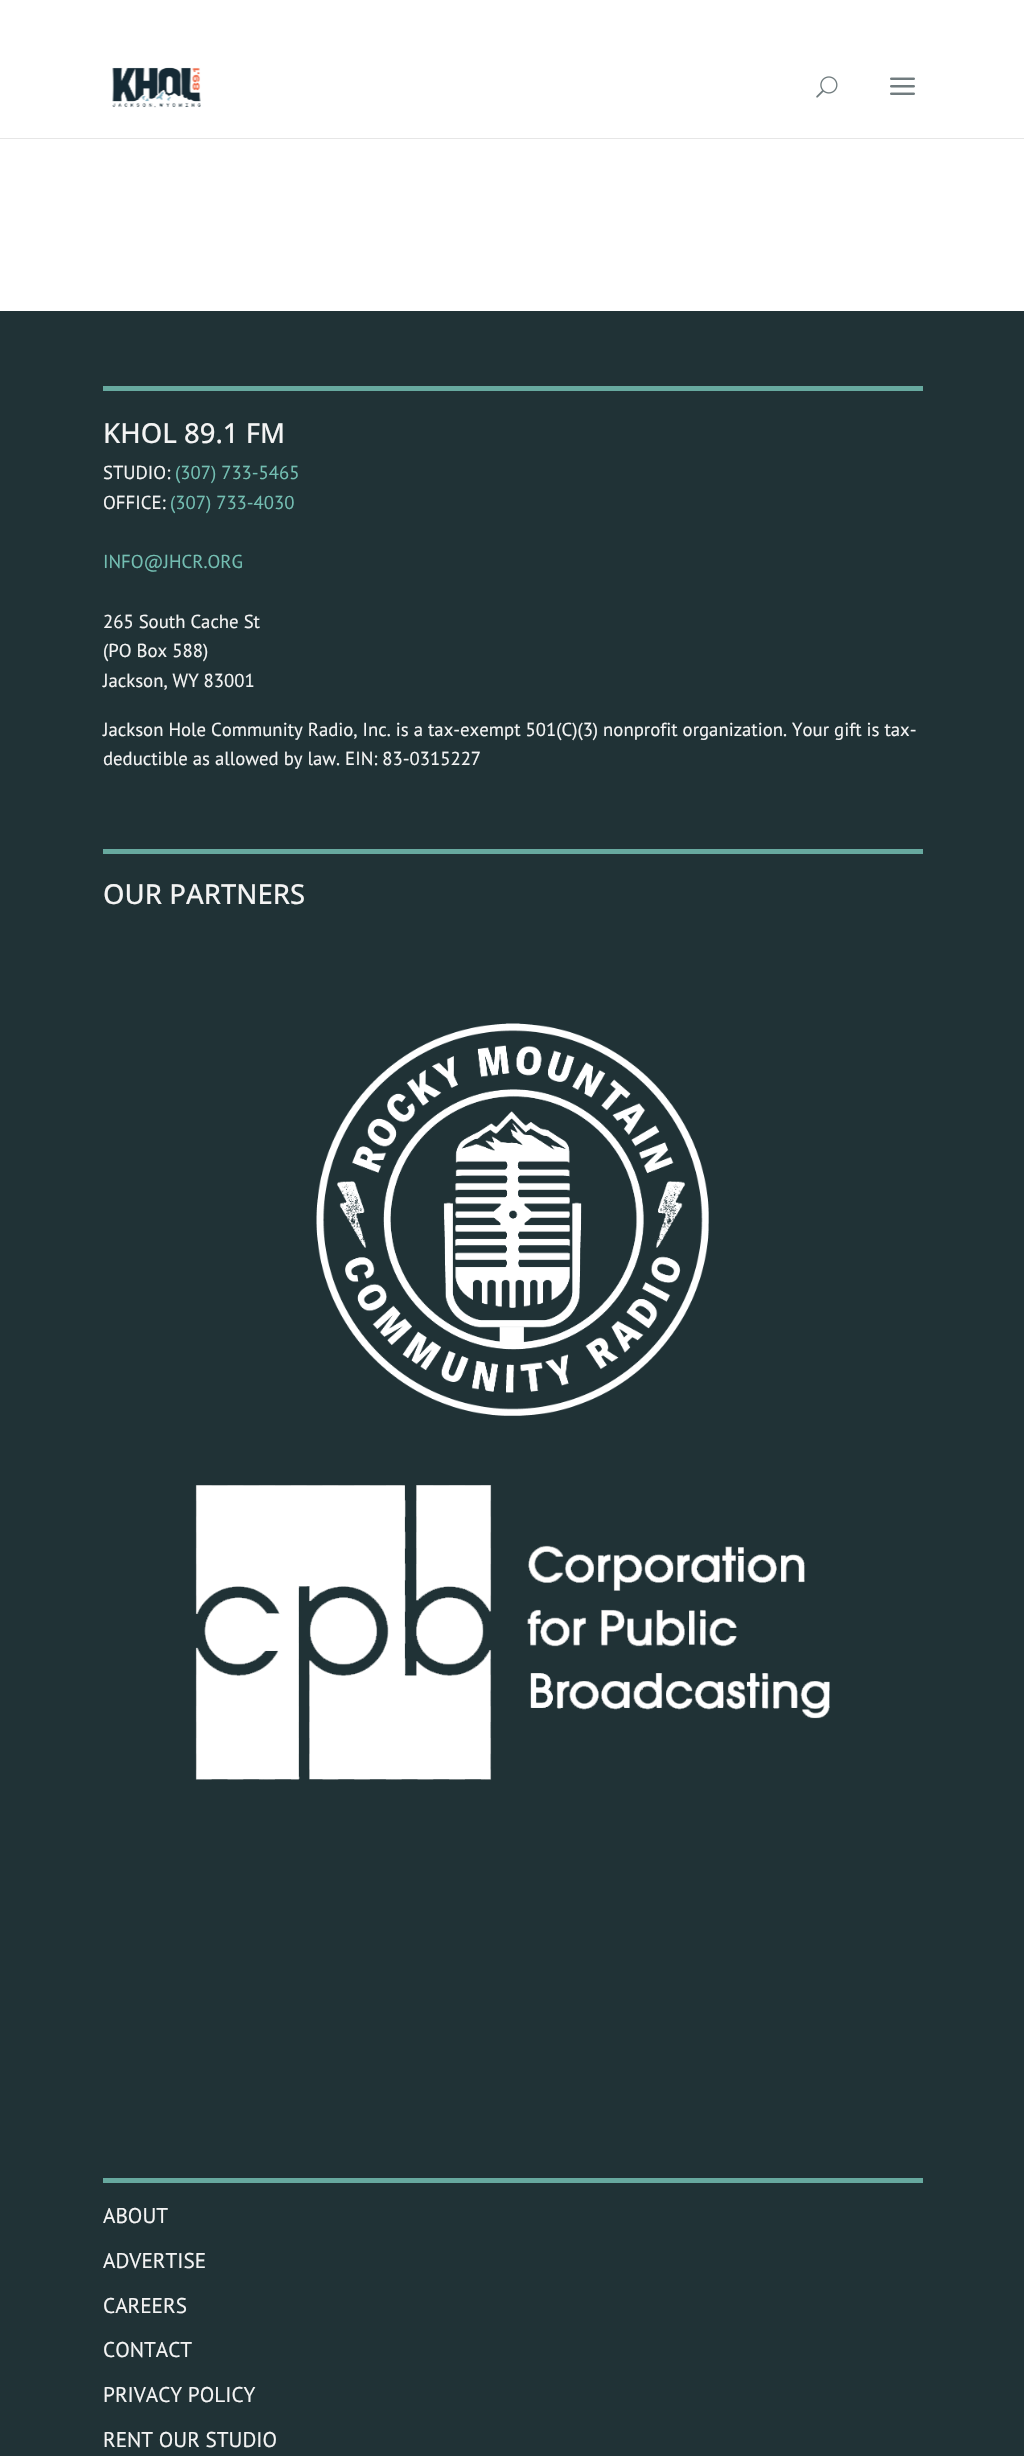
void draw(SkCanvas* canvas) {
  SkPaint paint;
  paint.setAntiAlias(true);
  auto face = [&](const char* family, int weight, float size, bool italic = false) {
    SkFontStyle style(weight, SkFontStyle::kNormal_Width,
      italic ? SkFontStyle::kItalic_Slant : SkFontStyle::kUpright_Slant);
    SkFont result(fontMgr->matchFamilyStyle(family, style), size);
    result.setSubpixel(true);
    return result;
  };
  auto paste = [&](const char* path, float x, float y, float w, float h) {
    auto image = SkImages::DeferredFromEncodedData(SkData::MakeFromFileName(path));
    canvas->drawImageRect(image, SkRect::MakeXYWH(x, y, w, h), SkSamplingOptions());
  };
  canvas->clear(0xffffffff);
  paint.setColor(0xffe6e6e6);
  canvas->drawRect(SkRect::MakeXYWH(0, 138, 1024, 1), paint);
  paste("img/1.png", 112, 67, 89, 41);
  paste("img/2.png", 816, 76, 22, 22);
  paste("img/3.png", 890, 77, 25, 18);
  {
    const struct { float x, y, w, h; SkColor color; } items[] = {
      {0, 311, 1024, 2145, 0xff203236},
      {103, 386, 820, 5, 0xff67a99f},
      {103, 849, 820, 5, 0xff67a99f},
    };
    for (auto [x, y, w, h, color] : items) {
      paint.setColor(color);
      canvas->drawRect(SkRect::MakeXYWH(x, y, w, h), paint);
    }
  }
  paste("img/4.png", 316, 1023, 393, 393);
  paste("img/5.png", 195, 1485, 635, 295);
  canvas->drawRect(SkRect::MakeXYWH(103, 2178, 820, 5), paint);
  auto f0 = face("Open Sans", 500, 27.5f);
  paint.setColor(0xfff4f4f4);
  canvas->drawString("KHOL 89.1 FM", 103, 443, f0, paint);
  auto f1 = face("PT Sans", 400, 18.75f);
  canvas->drawString("STUDIO:", 103, 479, f1, paint);
  paint.setColor(0xff73beb2);
  canvas->drawString("(307) 733-5465", 175, 479, f1, paint);
  paint.setColor(0xfff4f4f4);
  canvas->drawString("OFFICE:", 103, 509, f1, paint);
  paint.setColor(0xff73beb2);
  canvas->drawString("(307) 733-4030", 170, 509, f1, paint);
  canvas->drawString("INFO@JHCR.ORG", 103, 568, f1, paint);
  paint.setColor(0xfff4f4f4);
  {
    const struct { const char* s; float x, y; } items[] = {
      {"265 South Cache St", 103, 628},
      {"(PO Box 588)", 103, 657},
      {"Jackson, WY 83001", 103, 687},
      {"Jackson Hole Community Radio, Inc. is a tax-exempt 501(C)(3) nonprofit organization. Your gift is tax-", 103, 736},
      {"deductible as allowed by law. EIN: 83-0315227", 103, 765},
    };
    for (auto [s, x, y] : items) {
      canvas->drawString(s, x, y, f1, paint);
    }
  }
  canvas->drawString("OUR PARTNERS", 103, 904, f0, paint);
  auto f2 = face("PT Sans", 400, 21.25f);
  {
    const struct { const char* s; float x, y; } items[] = {
      {"ABOUT", 103, 2223},
      {"ADVERTISE", 103, 2268},
      {"CAREERS", 103, 2313},
      {"CONTACT", 103, 2357},
      {"PRIVACY POLICY", 103, 2402},
      {"RENT OUR STUDIO", 103, 2447},
    };
    for (auto [s, x, y] : items) {
      canvas->drawString(s, x, y, f2, paint);
    }
  }
}
